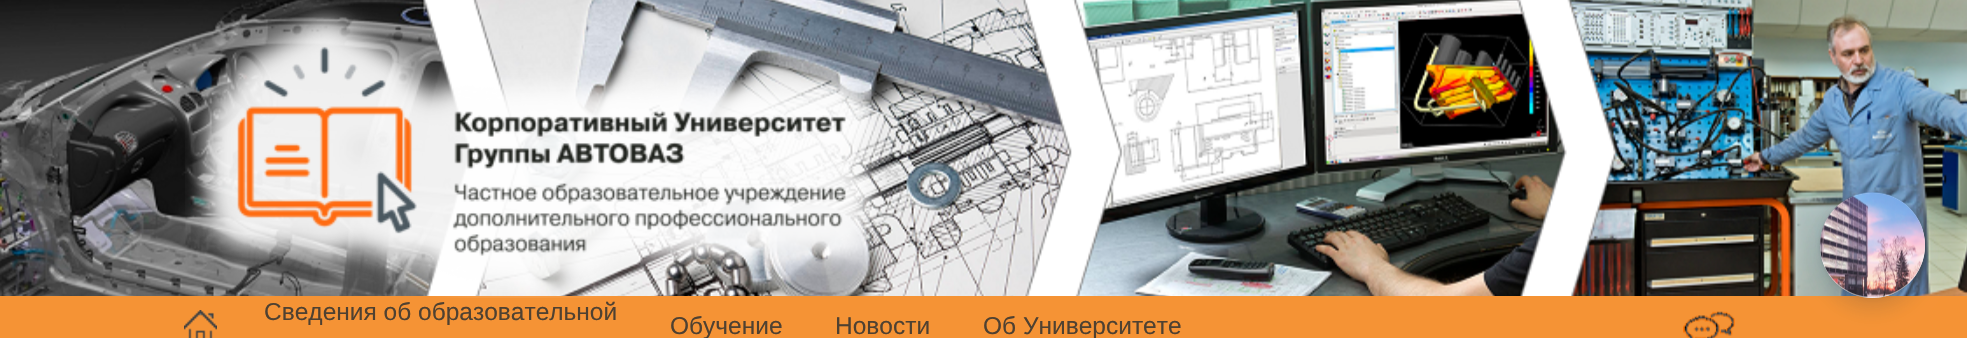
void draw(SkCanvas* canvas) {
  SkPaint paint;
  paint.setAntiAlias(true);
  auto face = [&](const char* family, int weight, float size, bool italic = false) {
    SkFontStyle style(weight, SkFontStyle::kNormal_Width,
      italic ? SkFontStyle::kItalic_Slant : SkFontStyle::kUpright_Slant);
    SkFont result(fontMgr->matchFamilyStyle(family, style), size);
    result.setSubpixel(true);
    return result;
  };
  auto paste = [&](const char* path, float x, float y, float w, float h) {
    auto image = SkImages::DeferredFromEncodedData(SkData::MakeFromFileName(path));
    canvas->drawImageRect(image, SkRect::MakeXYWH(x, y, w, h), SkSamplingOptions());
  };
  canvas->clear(0xffffffff);
  paste("img/1.png", 0, 0, 1967, 296);
  paint.setColor(0xfff59335);
  canvas->drawRect(SkRect::MakeXYWH(0, 296, 1967, 42), paint);
  paste("img/2.png", 185, 0, 707, 298);
  paste("img/3.png", 184, 310, 33, 28);
  paste("img/4.png", 1683, 311, 52, 27);
  paint.setColor(0x1a000000);
  paint.setMaskFilter(SkMaskFilter::MakeBlur(kNormal_SkBlurStyle, 2));
  canvas->drawRoundRect(SkRect::MakeXYWH(1820, 193, 105, 105), 52.5f, 52.5f, paint);
  paint.setMaskFilter(nullptr);
  paint.setColor(0x290c2b42);
  paint.setMaskFilter(SkMaskFilter::MakeBlur(kNormal_SkBlurStyle, 10.5f));
  canvas->drawRoundRect(SkRect::MakeXYWH(1820, 203, 105, 105), 52.5f, 52.5f, paint);
  paint.setMaskFilter(nullptr);
  paint.setColor(0x0f113c5c);
  paint.setMaskFilter(SkMaskFilter::MakeBlur(kNormal_SkBlurStyle, 1));
  canvas->drawRoundRect(SkRect::MakeXYWH(1820, 193, 105, 105), 52.5f, 52.5f, paint);
  paint.setMaskFilter(nullptr);
  paint.setColor(0xffffffff);
  canvas->drawCircle(1872.5f, 245.5f, 52.5f, paint);
  paste("img/5.png", 1820, 192, 105, 106);
  auto f0 = face("Liberation Sans", 400, 24.5f);
  paint.setColor(0xff4f4131);
  {
    const struct { const char* s; float x, y; } items[] = {
      {"Сведения об образовательной", 264, 320},
      {"Обучение", 670, 334},
      {"Новости", 835, 334},
      {"Об Университете", 983, 334},
    };
    for (auto [s, x, y] : items) {
      canvas->drawString(s, x, y, f0, paint);
    }
  }
}
